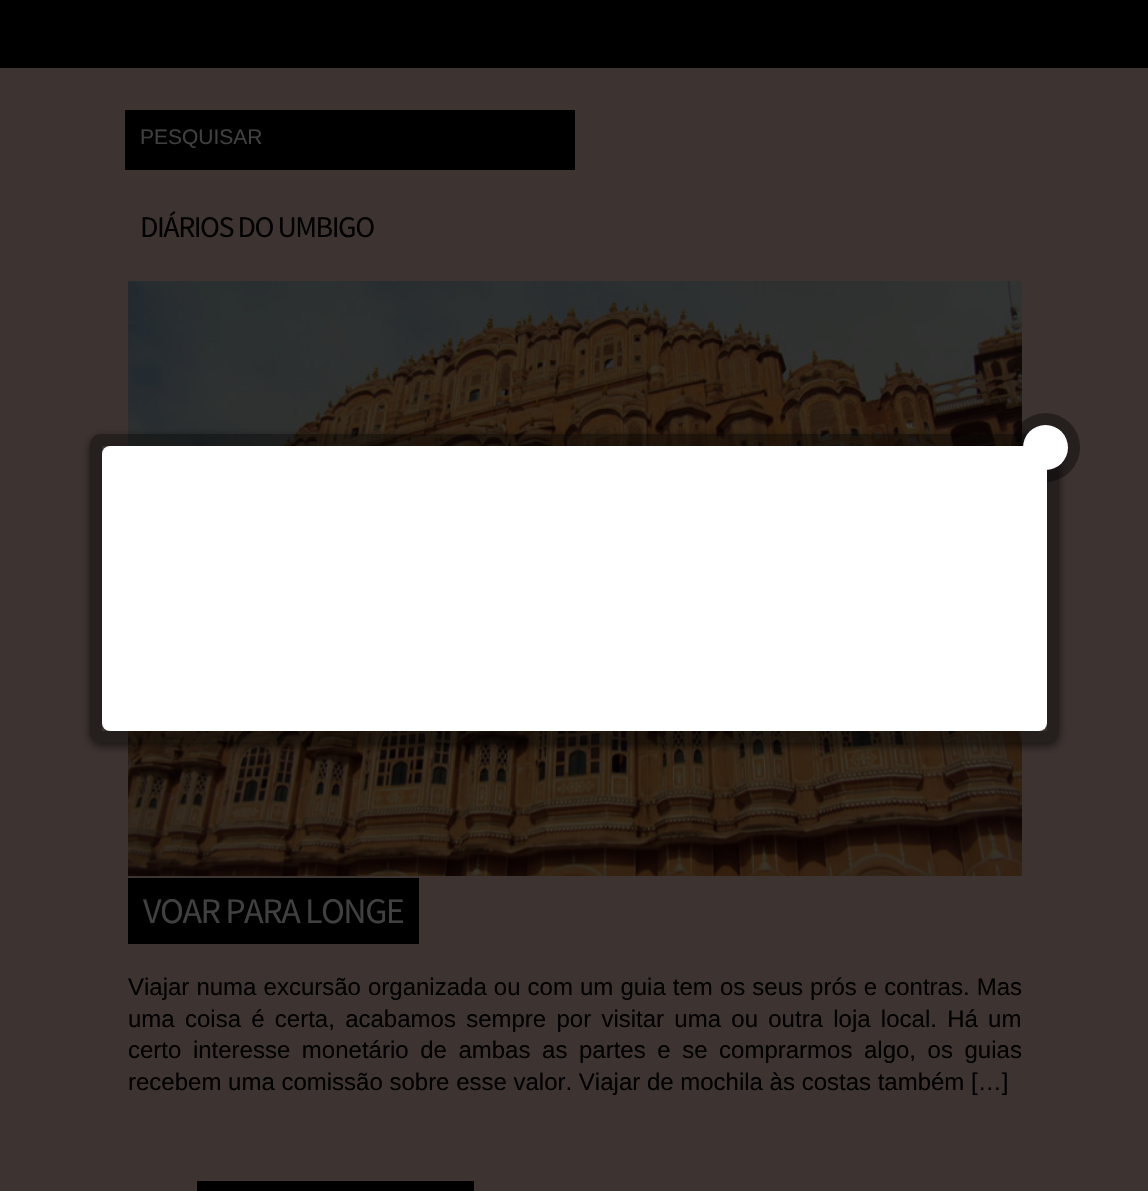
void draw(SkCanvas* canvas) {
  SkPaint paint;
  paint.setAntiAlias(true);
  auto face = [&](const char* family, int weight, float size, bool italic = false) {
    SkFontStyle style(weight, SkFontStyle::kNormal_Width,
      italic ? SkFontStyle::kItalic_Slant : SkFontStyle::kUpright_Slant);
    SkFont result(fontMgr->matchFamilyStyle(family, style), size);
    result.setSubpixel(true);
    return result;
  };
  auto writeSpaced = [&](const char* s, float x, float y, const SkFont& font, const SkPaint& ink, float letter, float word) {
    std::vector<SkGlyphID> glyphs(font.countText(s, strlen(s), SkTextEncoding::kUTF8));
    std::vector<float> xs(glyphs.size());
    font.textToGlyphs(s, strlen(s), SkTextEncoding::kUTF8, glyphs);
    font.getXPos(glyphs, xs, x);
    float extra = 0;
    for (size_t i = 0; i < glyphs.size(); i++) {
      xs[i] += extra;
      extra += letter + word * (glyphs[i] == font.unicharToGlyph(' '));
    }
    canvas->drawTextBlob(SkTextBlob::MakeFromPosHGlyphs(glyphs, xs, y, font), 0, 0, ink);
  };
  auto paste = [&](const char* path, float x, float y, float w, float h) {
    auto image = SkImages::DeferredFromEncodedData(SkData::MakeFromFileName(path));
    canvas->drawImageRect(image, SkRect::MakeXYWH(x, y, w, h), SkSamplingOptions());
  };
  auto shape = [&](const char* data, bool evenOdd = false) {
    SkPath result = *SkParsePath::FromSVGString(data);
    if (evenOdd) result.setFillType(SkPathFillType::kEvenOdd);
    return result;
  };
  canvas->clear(0xff3d3331);
  paint.setColor(0xff000000);
  canvas->drawRect(SkRect::MakeXYWH(0, 0, 1148, 68), paint);
  canvas->drawRect(SkRect::MakeXYWH(125, 110, 450, 60), paint);
  paste("img/1.png", 128, 281, 894, 595);
  canvas->save();
  canvas->clipPath(shape("M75 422H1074V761H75ZM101 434H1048C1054 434 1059 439 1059 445V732C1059 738 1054 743 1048 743H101C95 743 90 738 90 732V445C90 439 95 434 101 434Z", true), true);
  paint.setColor(0x99000000);
  paint.setMaskFilter(SkMaskFilter::MakeBlur(kNormal_SkBlurStyle, 4.5f));
  canvas->drawRoundRect(SkRect::MakeXYWH(90, 437, 969, 309), 11, 11, paint);
  paint.setMaskFilter(nullptr);
  canvas->restore();
  paint.setStroke(true);
  paint.setStrokeWidth(12);
  paint.setColor(0x66000000);
  canvas->drawRoundRect(SkRect::MakeXYWH(96, 440, 957, 297), 5, 5, paint);
  paint.setStroke(false);
  canvas->drawCircle(1045.5f, 447.5f, 34.5f, paint);
  paint.setColor(0xffffffff);
  canvas->drawRoundRect(SkRect::MakeXYWH(102, 446, 945, 285), 8, 8, paint);
  canvas->drawCircle(1045.5f, 447.5f, 22.5f, paint);
  paint.setColor(0xff000000);
  canvas->drawRect(SkRect::MakeXYWH(128, 878, 291, 66), paint);
  canvas->drawRect(SkRect::MakeXYWH(197, 1181, 277, 10), paint);
  auto f0 = face("Liberation Sans", 400, 21);
  paint.setColor(0xff404040);
  canvas->drawString("PESQUISAR", 140, 144, f0, paint);
  auto f1 = face("Source Sans Pro", 400, 30);
  paint.setColor(0xff000000);
  writeSpaced("DIÁRIOS DO UMBIGO", 140, 237, f1, paint, -1.5f, 0);
  auto f2 = face("Source Sans Pro", 400, 36);
  paint.setColor(0xff404040);
  writeSpaced("VOAR PARA LONGE", 143, 923, f2, paint, -1.5f, 0);
  auto f3 = face("Liberation Sans", 400, 24);
  paint.setColor(0xff000000);
  writeSpaced("Viajar numa excursão organizada ou com um guia tem os seus prós e contras. Mas", 128, 995, f3, paint, 0, 0.4f);
  writeSpaced("uma coisa é certa, acabamos sempre por visitar uma ou outra loja local. Há um", 128, 1027, f3, paint, 0, 3.6f);
  writeSpaced("certo interesse monetário de ambas as partes e se comprarmos algo, os guias", 128, 1058, f3, paint, 0, 4.9f);
  canvas->drawString("recebem uma comissão sobre esse valor. Viajar de mochila às costas também […]", 128, 1090, f3, paint);
}
